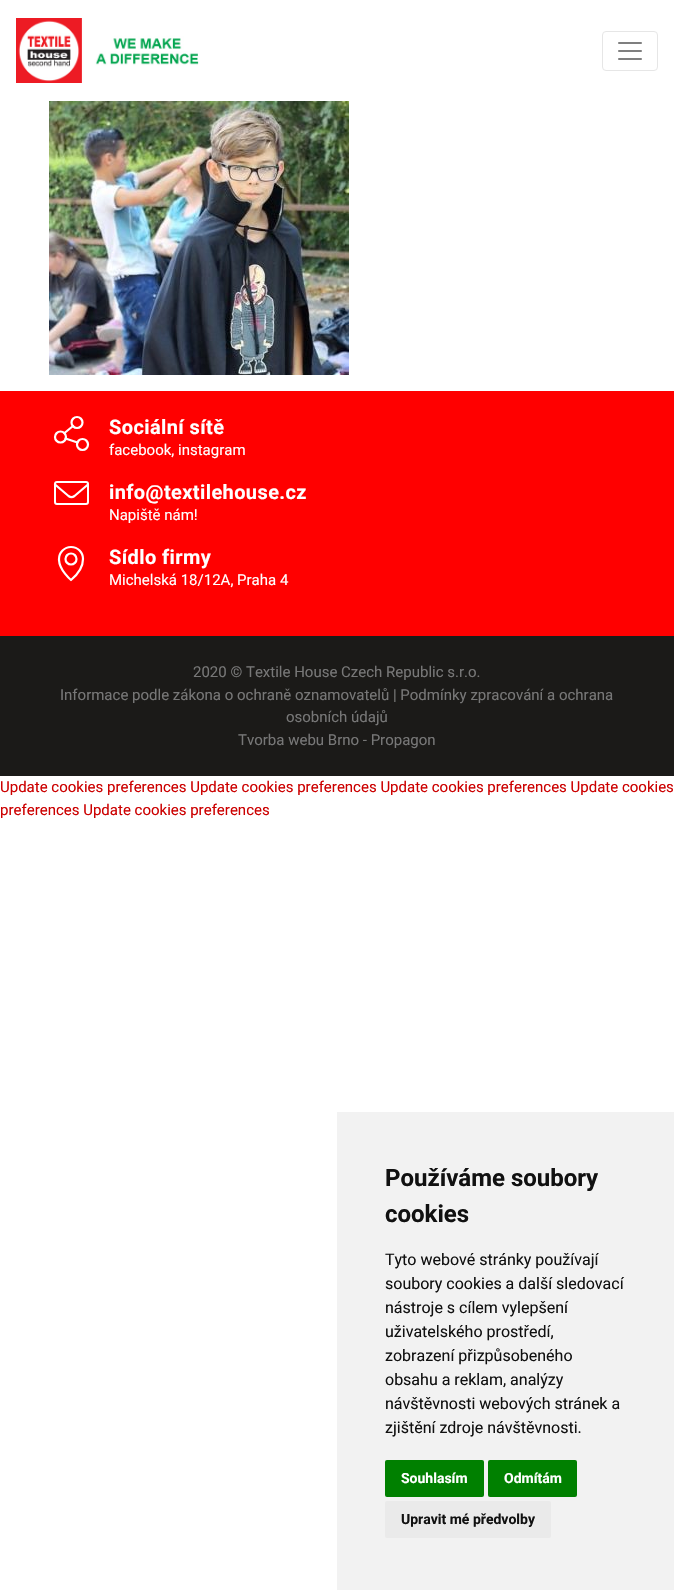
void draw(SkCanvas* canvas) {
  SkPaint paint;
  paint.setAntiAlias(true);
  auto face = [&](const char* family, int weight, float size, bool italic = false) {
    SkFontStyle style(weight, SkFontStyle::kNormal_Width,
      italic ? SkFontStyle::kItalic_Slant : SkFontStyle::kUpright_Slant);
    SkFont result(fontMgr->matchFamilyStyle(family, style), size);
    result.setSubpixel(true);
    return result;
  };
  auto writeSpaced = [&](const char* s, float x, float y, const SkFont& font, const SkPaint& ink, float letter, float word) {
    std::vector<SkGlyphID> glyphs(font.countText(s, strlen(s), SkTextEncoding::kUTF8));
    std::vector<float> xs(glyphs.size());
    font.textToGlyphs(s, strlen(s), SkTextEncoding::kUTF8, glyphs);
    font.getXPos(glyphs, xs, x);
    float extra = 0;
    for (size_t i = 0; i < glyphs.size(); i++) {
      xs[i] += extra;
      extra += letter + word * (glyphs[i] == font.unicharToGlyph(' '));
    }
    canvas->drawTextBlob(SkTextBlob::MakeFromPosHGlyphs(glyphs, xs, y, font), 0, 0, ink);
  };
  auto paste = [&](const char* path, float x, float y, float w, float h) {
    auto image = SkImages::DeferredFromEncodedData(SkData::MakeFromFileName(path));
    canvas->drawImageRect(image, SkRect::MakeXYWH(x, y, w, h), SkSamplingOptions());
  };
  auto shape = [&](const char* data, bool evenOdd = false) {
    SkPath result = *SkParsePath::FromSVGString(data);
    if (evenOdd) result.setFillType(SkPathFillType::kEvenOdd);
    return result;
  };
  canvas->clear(0xffffffff);
  paste("img/1.png", 16, 18, 183, 65);
  paint.setStroke(true);
  paint.setStrokeWidth(1);
  paint.setColor(0xffe6e6e6);
  canvas->drawRoundRect(SkRect::MakeXYWH(602.5f, 31.5f, 55, 39), 3.5f, 3.5f, paint);
  paste("img/2.png", 618, 42, 24, 18);
  paste("img/3.png", 49, 101, 300, 274);
  paint.setStroke(false);
  paint.setColor(0xffff0000);
  canvas->drawRect(SkRect::MakeXYWH(0, 391, 674, 245), paint);
  paint.setStroke(true);
  paint.setStrokeWidth(2.2f);
  paint.setColor(0xffffffff);
  canvas->drawCircle(60.5f, 437, 5.5f, paint);
  canvas->drawCircle(77, 422.5f, 5.5f, paint);
  canvas->drawCircle(82.5f, 444.5f, 5.5f, paint);
  paint.setStrokeCap(SkPaint::kRound_Cap);
  paint.setStrokeJoin(SkPaint::kRound_Join);
  canvas->drawPath(shape("M65.5 438.5L77.5 442.5M73 426L64.5 433"), paint);
  paint.setStrokeWidth(2);
  paint.setStrokeCap(SkPaint::kButt_Cap);
  paint.setStrokeJoin(SkPaint::kMiter_Join);
  canvas->drawRoundRect(SkRect::MakeXYWH(55, 482, 33, 22), 2, 2, paint);
  paint.setStrokeWidth(2.2f);
  paint.setStrokeCap(SkPaint::kRound_Cap);
  paint.setStrokeJoin(SkPaint::kRound_Join);
  canvas->drawPath(shape("M55 484.5L68.5 496C70.5 497.5 72.5 497.5 74.5 496L88 484.5"), paint);
  canvas->drawPath(shape("M83 559C83 567 77 575 71 580C71 580 59.5 570.5 59 560V559C59 552.5 64.5 547 71 547C78 547 83 552.5 83 559Z"), paint);
  paint.setStrokeCap(SkPaint::kButt_Cap);
  paint.setStrokeJoin(SkPaint::kMiter_Join);
  canvas->drawCircle(71, 559, 5.5f, paint);
  paint.setStroke(false);
  paint.setColor(0xff1b1a18);
  canvas->drawRect(SkRect::MakeXYWH(0, 636, 674, 140), paint);
  paint.setColor(0xfff2f2f2);
  canvas->drawRect(SkRect::MakeXYWH(337, 1112, 337, 478), paint);
  paint.setColor(0xff008000);
  canvas->drawRoundRect(SkRect::MakeXYWH(385, 1460, 99, 37), 2, 2, paint);
  canvas->drawRoundRect(SkRect::MakeXYWH(488, 1460, 89, 37), 2, 2, paint);
  paint.setColor(0xffeaeaea);
  canvas->drawRoundRect(SkRect::MakeXYWH(385, 1501, 166, 37), 2, 2, paint);
  auto f0 = face("Roboto", 700, 20);
  paint.setColor(0xffffffff);
  writeSpaced("Sociální sítě", 109, 434, f0, paint, 0.4f, 0);
  auto f1 = face("Roboto", 400, 15);
  canvas->drawString("facebook, instagram", 109, 455, f1, paint);
  writeSpaced("info@textilehouse.cz", 109, 499, f0, paint, 0.4f, 0);
  canvas->drawString("Napiště nám!", 109, 520, f1, paint);
  writeSpaced("Sídlo firmy", 109, 564, f0, paint, 0.4f, 0);
  canvas->drawString("Michelská 18/12A, Praha 4", 109, 585, f1, paint);
  paint.setColor(0xff777777);
  {
    const struct { const char* s; float x, y; } items[] = {
      {"2020 © Textile House Czech Republic s.r.o.", 193, 677},
      {"Informace podle zákona o ochraně oznamovatelů | Podmínky zpracování a ochrana", 60, 700},
      {"osobních údajů", 286, 722},
      {"Tvorba webu Brno - Propagon", 238, 745},
    };
    for (auto [s, x, y] : items) {
      canvas->drawString(s, x, y, f1, paint);
    }
  }
  paint.setColor(0xffcc0000);
  canvas->drawString("Update cookies preferences Update cookies preferences Update cookies preferences Update cookies", 0, 792, f1, paint);
  canvas->drawString("preferences Update cookies preferences", 0, 815, f1, paint);
  auto f2 = face("Roboto", 700, 24);
  paint.setColor(0xff111111);
  canvas->drawString("Používáme soubory", 385, 1186, f2, paint);
  canvas->drawString("cookies", 385, 1222, f2, paint);
  auto f3 = face("Roboto", 400, 16);
  {
    const struct { const char* s; float x, y; } items[] = {
      {"Tyto webové stránky používají", 385, 1265},
      {"soubory cookies a další sledovací", 385, 1289},
      {"nástroje s cílem vylepšení", 385, 1313},
      {"uživatelského prostředí,", 385, 1337},
      {"zobrazení přizpůsobeného", 385, 1361},
      {"obsahu a reklam, analýzy", 385, 1385},
      {"návštěvnosti webových stránek a", 385, 1409},
      {"zjištění zdroje návštěvnosti.", 385, 1433},
    };
    for (auto [s, x, y] : items) {
      canvas->drawString(s, x, y, f3, paint);
    }
  }
  auto f4 = face("Roboto", 700, 14);
  paint.setColor(0xffffffff);
  canvas->drawString("Souhlasím", 401, 1483, f4, paint);
  canvas->drawString("Odmítám", 504, 1483, f4, paint);
  paint.setColor(0xff111111);
  canvas->drawString("Upravit mé předvolby", 401, 1524, f4, paint);
}
